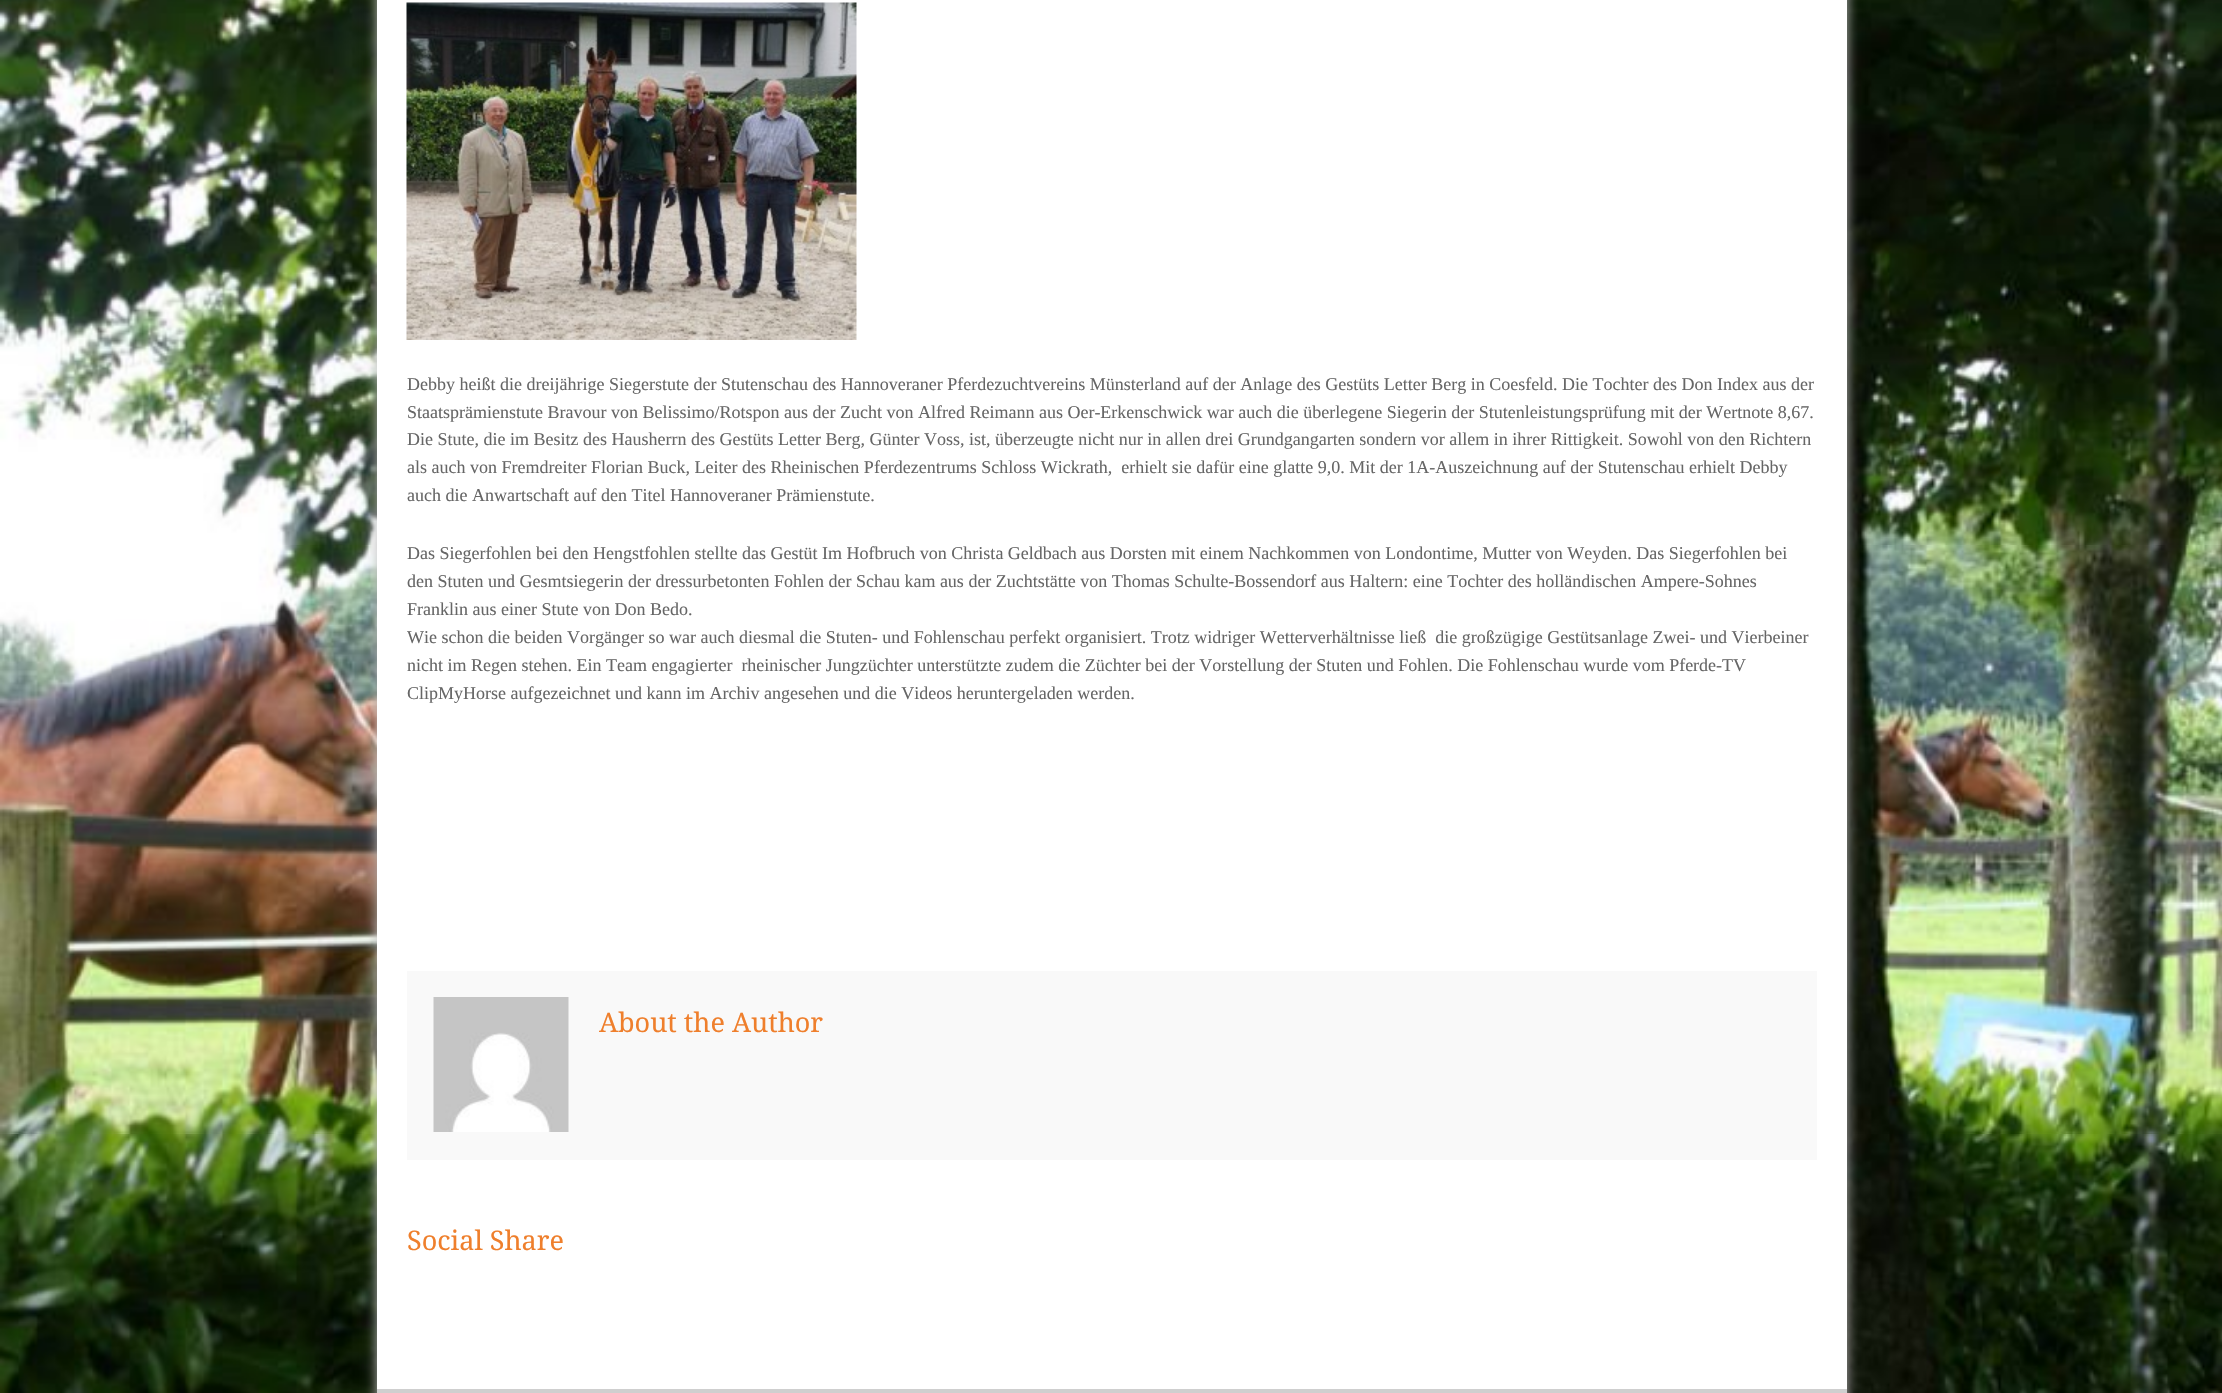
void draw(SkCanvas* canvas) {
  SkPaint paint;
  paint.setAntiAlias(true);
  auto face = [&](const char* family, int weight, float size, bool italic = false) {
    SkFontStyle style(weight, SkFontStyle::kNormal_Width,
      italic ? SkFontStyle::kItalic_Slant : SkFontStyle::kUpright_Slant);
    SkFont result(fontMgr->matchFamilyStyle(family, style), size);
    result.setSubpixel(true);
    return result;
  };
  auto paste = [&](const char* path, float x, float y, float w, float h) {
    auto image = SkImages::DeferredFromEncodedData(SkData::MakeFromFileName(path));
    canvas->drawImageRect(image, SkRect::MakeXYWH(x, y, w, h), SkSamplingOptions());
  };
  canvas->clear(0xffffffff);
  paste("img/1.png", 0, 0, 2222, 1393);
  paint.setColor(0xffbbbbbb);
  paint.setMaskFilter(SkMaskFilter::MakeBlur(kNormal_SkBlurStyle, 6));
  canvas->drawRect(SkRect::MakeXYWH(377, -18, 1470, 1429), paint);
  paint.setMaskFilter(nullptr);
  paint.setColor(0xffffffff);
  canvas->drawRect(SkRect::MakeXYWH(377, 0, 1470, 1389), paint);
  paste("img/2.png", 406, 2, 451, 338);
  paint.setColor(0xfff9f9f9);
  canvas->drawRect(SkRect::MakeXYWH(407, 971, 1410, 189), paint);
  paste("img/3.png", 433, 997, 136, 135);
  paint.setColor(0xffcfcfcf);
  canvas->drawRect(SkRect::MakeXYWH(377, 1389, 1470, 4), paint);
  auto f0 = face("Liberation Serif", 400, 18);
  paint.setColor(0xff666666);
  {
    const struct { const char* s; float x, y; } items[] = {
      {"Debby heißt die dreijährige Siegerstute der Stutenschau des Hannoveraner Pferdezuchtvereins Münsterland auf der Anlage des Gestüts Letter Berg in Coesfeld. Die Tochter des Don Index aus der", 407, 390},
      {"Staatsprämienstute Bravour von Belissimo/Rotspon aus der Zucht von Alfred Reimann aus Oer-Erkenschwick war auch die überlegene Siegerin der Stutenleistungsprüfung mit der Wertnote 8,67.", 407, 418},
      {"Die Stute, die im Besitz des Hausherrn des Gestüts Letter Berg, Günter Voss, ist, überzeugte nicht nur in allen drei Grundgangarten sondern vor allem in ihrer Rittigkeit. Sowohl von den Richtern", 407, 445},
      {"als auch von Fremdreiter Florian Buck, Leiter des Rheinischen Pferdezentrums Schloss Wickrath,  erhielt sie dafür eine glatte 9,0. Mit der 1A-Auszeichnung auf der Stutenschau erhielt Debby", 407, 473},
      {"auch die Anwartschaft auf den Titel Hannoveraner Prämienstute.", 407, 501},
      {"Das Siegerfohlen bei den Hengstfohlen stellte das Gestüt Im Hofbruch von Christa Geldbach aus Dorsten mit einem Nachkommen von Londontime, Mutter von Weyden. Das Siegerfohlen bei", 407, 559},
      {"den Stuten und Gesmtsiegerin der dressurbetonten Fohlen der Schau kam aus der Zuchtstätte von Thomas Schulte-Bossendorf aus Haltern: eine Tochter des holländischen Ampere-Sohnes", 407, 587},
      {"Franklin aus einer Stute von Don Bedo.", 407, 615},
      {"Wie schon die beiden Vorgänger so war auch diesmal die Stuten- und Fohlenschau perfekt organisiert. Trotz widriger Wetterverhältnisse ließ  die großzügige Gestütsanlage Zwei- und Vierbeiner", 407, 643},
      {"nicht im Regen stehen. Ein Team engagierter  rheinischer Jungzüchter unterstützte zudem die Züchter bei der Vorstellung der Stuten und Fohlen. Die Fohlenschau wurde vom Pferde-TV", 407, 671},
      {"ClipMyHorse aufgezeichnet und kann im Archiv angesehen und die Videos heruntergeladen werden.", 407, 699},
    };
    for (auto [s, x, y] : items) {
      canvas->drawString(s, x, y, f0, paint);
    }
  }
  auto f1 = face("Droid Serif", 400, 27);
  paint.setColor(0xffef7f2c);
  canvas->drawString("About the Author", 599, 1032, f1, paint);
  canvas->drawString("Social Share", 407, 1250, f1, paint);
}
